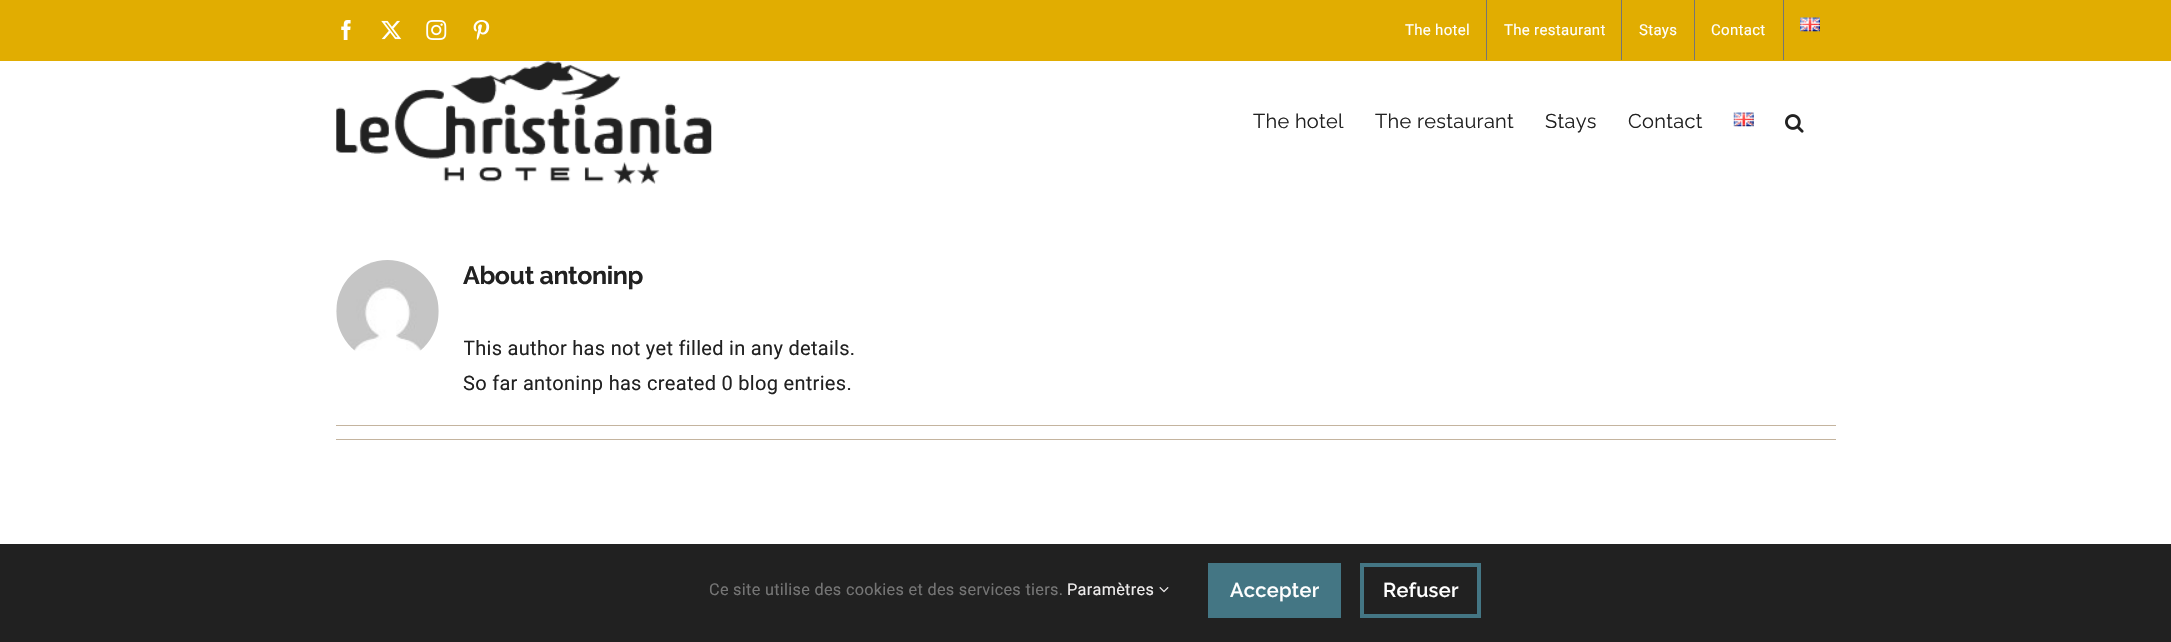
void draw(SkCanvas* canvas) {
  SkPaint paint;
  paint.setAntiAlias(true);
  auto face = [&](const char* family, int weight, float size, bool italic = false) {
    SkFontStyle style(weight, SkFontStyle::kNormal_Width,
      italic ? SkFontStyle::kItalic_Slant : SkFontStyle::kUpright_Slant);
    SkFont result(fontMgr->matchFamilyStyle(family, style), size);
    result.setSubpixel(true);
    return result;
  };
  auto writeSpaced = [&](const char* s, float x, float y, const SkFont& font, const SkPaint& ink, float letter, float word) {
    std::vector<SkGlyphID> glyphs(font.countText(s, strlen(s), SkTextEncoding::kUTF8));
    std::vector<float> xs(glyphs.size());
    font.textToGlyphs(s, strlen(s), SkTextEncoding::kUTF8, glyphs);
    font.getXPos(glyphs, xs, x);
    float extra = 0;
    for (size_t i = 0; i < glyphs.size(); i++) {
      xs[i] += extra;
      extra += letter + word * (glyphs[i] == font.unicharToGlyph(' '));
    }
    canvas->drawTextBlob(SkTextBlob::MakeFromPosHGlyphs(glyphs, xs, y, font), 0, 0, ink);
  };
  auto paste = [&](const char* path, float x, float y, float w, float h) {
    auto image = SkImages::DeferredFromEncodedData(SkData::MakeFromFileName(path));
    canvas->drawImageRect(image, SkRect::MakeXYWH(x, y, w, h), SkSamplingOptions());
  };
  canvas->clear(0xffffffff);
  paint.setColor(0xffe1ad01);
  canvas->drawRect(SkRect::MakeXYWH(0, 0, 2171, 61), paint);
  paste("img/1.png", 341, 20, 10, 20);
  paste("img/2.png", 381, 20, 21, 20);
  paste("img/3.png", 426, 20, 21, 20);
  paste("img/4.png", 473, 20, 17, 20);
  {
    const struct { float x, y, w, h; SkColor color; } items[] = {
      {1486, 0, 1, 60, 0xff757575},
      {1621, 0, 1, 60, 0xff757575},
      {1694, 0, 1, 60, 0xff757575},
      {1783, 0, 1, 60, 0xff757575},
    };
    for (auto [x, y, w, h, color] : items) {
      paint.setColor(color);
      canvas->drawRect(SkRect::MakeXYWH(x, y, w, h), paint);
    }
  }
  paste("img/5.png", 1800, 17, 20, 15);
  paste("img/6.png", 336, 61, 376, 123);
  paste("img/7.png", 1733, 112, 21, 15);
  paste("img/8.png", 1785, 114, 19, 19);
  paste("img/9.png", 336, 260, 103, 91);
  {
    const struct { float x, y, w, h; SkColor color; } items[] = {
      {336, 425, 1500, 1, 0xffc4b49f},
      {336, 439, 1500, 1, 0xffc4b49f},
      {0, 544, 2171, 98, 0xff212121},
    };
    for (auto [x, y, w, h, color] : items) {
      paint.setColor(color);
      canvas->drawRect(SkRect::MakeXYWH(x, y, w, h), paint);
    }
  }
  paste("img/10.png", 1159, 587, 10, 6);
  paint.setColor(0xff447684);
  canvas->drawRect(SkRect::MakeXYWH(1208, 563, 133, 55), paint);
  paint.setStroke(true);
  paint.setStrokeWidth(4);
  canvas->drawRect(SkRect::MakeXYWH(1362, 565, 117, 51), paint);
  auto f0 = face("Roboto", 400, 15);
  paint.setStroke(false);
  paint.setColor(0xffffffff);
  {
    const struct { const char* s; float x, y; } items[] = {
      {"The hotel", 1405, 35},
      {"The restaurant", 1504, 35},
      {"Stays", 1639, 35},
      {"Contact", 1711, 35},
    };
    for (auto [s, x, y] : items) {
      writeSpaced(s, x, y, f0, paint, 0.3f, 0);
    }
  }
  auto f1 = face("Raleway", 400, 20);
  paint.setColor(0xff212121);
  {
    const struct { const char* s; float x, y; } items[] = {
      {"The hotel", 1253, 128},
      {"The restaurant", 1375, 128},
      {"Stays", 1545, 128},
      {"Contact", 1628, 128},
    };
    for (auto [s, x, y] : items) {
      writeSpaced(s, x, y, f1, paint, 0.3f, 0);
    }
  }
  auto f2 = face("Raleway", 700, 25);
  writeSpaced("About antoninp", 463, 284, f2, paint, -0.4f, 0);
  canvas->save();
  canvas->clipRect(SkRect::MakeXYWH(464, 260, 1372, 140));
  auto f3 = face("Roboto", 400, 20);
  writeSpaced("This author has not yet filled in any details.", 463, 355, f3, paint, 0.3f, 0);
  canvas->restore();
  writeSpaced("So far antoninp has created 0 blog entries.", 463, 390, f3, paint, 0.3f, 0);
  auto f4 = face("Roboto", 400, 16.25f);
  paint.setColor(0xff757575);
  writeSpaced("Ce site utilise des cookies et des services tiers.", 709, 595, f4, paint, 0.3f, 0);
  paint.setColor(0xffefeded);
  writeSpaced("Paramètres", 1067, 595, f4, paint, 0.3f, 0);
  auto f5 = face("Raleway", 600, 20);
  paint.setColor(0xffffffff);
  writeSpaced("Accepter", 1230, 597, f5, paint, 0.3f, 0);
  writeSpaced("Refuser", 1383, 597, f5, paint, 0.3f, 0);
}
